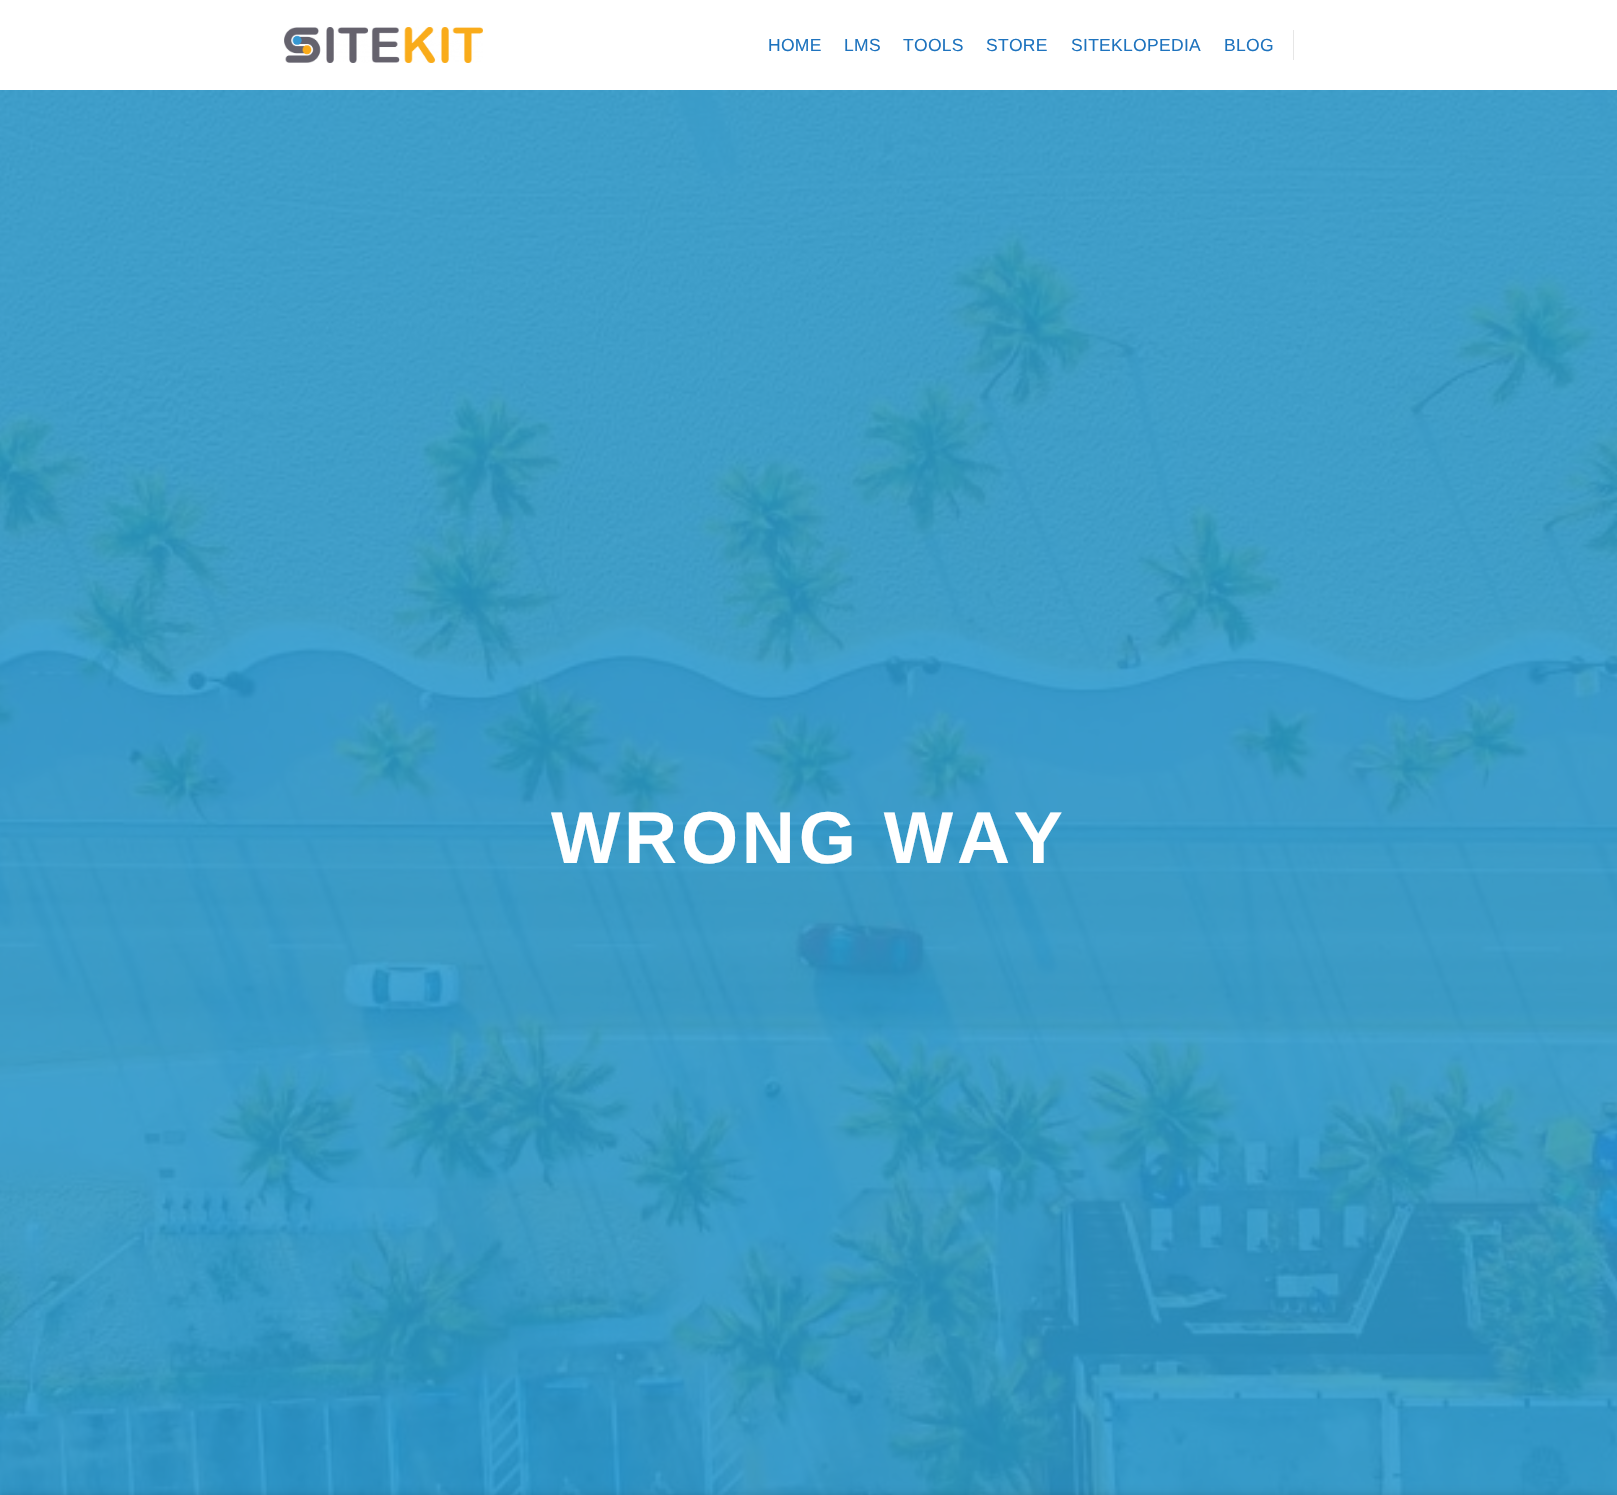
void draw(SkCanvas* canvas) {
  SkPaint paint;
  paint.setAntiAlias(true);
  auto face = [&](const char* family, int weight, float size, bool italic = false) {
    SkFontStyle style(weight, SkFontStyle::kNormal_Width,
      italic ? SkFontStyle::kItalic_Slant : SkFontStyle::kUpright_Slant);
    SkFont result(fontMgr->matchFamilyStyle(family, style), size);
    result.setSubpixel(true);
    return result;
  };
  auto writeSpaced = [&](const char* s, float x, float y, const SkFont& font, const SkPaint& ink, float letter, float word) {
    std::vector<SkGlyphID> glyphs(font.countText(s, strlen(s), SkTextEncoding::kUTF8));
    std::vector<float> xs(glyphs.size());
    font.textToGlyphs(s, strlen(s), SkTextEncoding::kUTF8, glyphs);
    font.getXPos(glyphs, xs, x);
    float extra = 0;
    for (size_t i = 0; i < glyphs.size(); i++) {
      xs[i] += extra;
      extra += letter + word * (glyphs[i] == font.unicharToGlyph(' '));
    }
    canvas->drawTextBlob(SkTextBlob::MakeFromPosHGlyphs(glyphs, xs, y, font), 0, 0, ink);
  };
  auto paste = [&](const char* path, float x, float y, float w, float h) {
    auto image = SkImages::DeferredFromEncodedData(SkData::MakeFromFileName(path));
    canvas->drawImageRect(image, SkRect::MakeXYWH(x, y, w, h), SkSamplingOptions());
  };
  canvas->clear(0xffffffff);
  paste("img/1.png", 284, 27, 199, 36);
  paint.setColor(0xffe6e6e6);
  canvas->drawRect(SkRect::MakeXYWH(1293, 30, 1, 30), paint);
  paste("img/2.png", 0, 90, 1617, 1405);
  paint.setColor(0x24000000);
  paint.setMaskFilter(SkMaskFilter::MakeBlur(kNormal_SkBlurStyle, 4.5f));
  canvas->drawRect(SkRect::MakeXYWH(0, 1495, 1617, 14), paint);
  paint.setMaskFilter(nullptr);
  auto f0 = face("Liberation Sans", 400, 17.5f);
  paint.setColor(0xff1e73be);
  {
    const struct { const char* s; float x, y; } items[] = {
      {"HOME", 768, 51},
      {"LMS", 844, 51},
      {"TOOLS", 903, 51},
      {"STORE", 986, 51},
      {"SITEKLOPEDIA", 1071, 51},
      {"BLOG", 1224, 51},
    };
    for (auto [s, x, y] : items) {
      writeSpaced(s, x, y, f0, paint, 0.3f, 0);
    }
  }
  auto f1 = face("Liberation Sans", 700, 73.5f);
  paint.setColor(0xffffffff);
  writeSpaced("WRONG WAY", 551, 863, f1, paint, 3.75f, 0);
}
